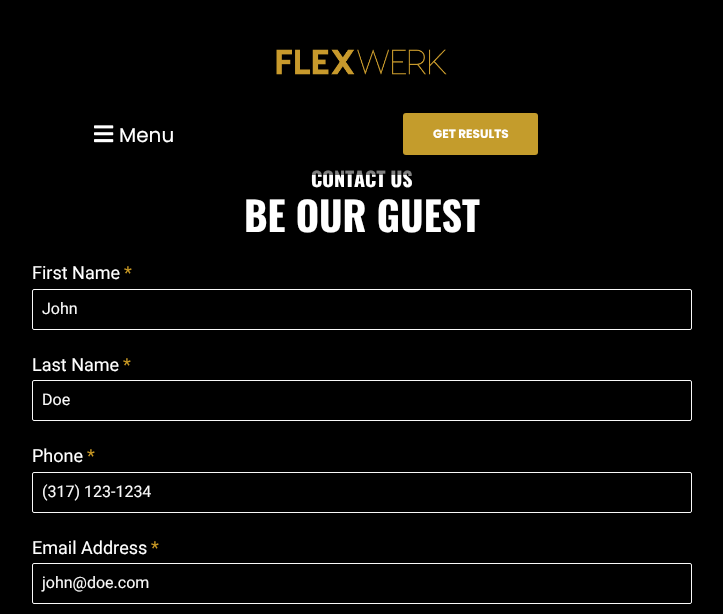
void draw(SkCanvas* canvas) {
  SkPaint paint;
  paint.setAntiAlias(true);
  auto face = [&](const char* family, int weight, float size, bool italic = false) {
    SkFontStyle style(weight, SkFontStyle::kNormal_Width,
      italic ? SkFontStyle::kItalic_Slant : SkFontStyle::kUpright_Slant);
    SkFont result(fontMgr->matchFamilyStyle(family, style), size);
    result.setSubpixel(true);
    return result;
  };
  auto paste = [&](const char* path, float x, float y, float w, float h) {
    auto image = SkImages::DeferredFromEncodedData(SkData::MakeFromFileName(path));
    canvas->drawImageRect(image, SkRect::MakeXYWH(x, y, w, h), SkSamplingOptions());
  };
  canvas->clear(0xff000000);
  paste("img/1.png", 276, 49, 171, 26);
  paste("img/2.png", 94, 125, 20, 18);
  paint.setColor(0xffc49c2c);
  canvas->drawRoundRect(SkRect::MakeXYWH(403, 113, 135, 42), 3, 3, paint);
  paint.setStroke(true);
  paint.setStrokeWidth(1);
  paint.setColor(0xfff9f9f9);
  canvas->drawRoundRect(SkRect::MakeXYWH(32.5f, 289.5f, 659, 40), 1.5f, 1.5f, paint);
  canvas->drawRoundRect(SkRect::MakeXYWH(32.5f, 380.5f, 659, 40), 1.5f, 1.5f, paint);
  canvas->drawRoundRect(SkRect::MakeXYWH(32.5f, 472.5f, 659, 40), 1.5f, 1.5f, paint);
  canvas->drawRoundRect(SkRect::MakeXYWH(32.5f, 563.5f, 659, 40), 1.5f, 1.5f, paint);
  auto f0 = face("Poppins", 400, 20);
  paint.setStroke(false);
  paint.setColor(0xffffffff);
  canvas->drawString("Menu", 119, 142, f0, paint);
  auto f1 = face("Poppins", 700, 12);
  canvas->drawString("GET RESULTS", 433, 138, f1, paint);
  auto f2 = face("Oswald", 700, 20);
  canvas->drawString("CONTACT US", 311, 187, f2, paint);
  paint.setColor(0x80000000);
  canvas->drawRect(SkRect::MakeXYWH(311, 170, 101, 5), paint);
  auto f3 = face("Oswald", 700, 40);
  paint.setColor(0xffffffff);
  canvas->drawString("BE OUR GUEST", 244, 232, f3, paint);
  auto f4 = face("Roboto", 400, 18);
  canvas->drawString("First Name", 32, 279, f4, paint);
  paint.setColor(0xffc89823);
  canvas->drawString("*", 124, 279, f4, paint);
  auto f5 = face("Roboto", 400, 16);
  paint.setColor(0xfff9f9f9);
  canvas->drawString("John", 42, 314, f5, paint);
  paint.setColor(0xffffffff);
  canvas->drawString("Last Name", 32, 371, f4, paint);
  paint.setColor(0xffc89823);
  canvas->drawString("*", 123, 371, f4, paint);
  paint.setColor(0xfff9f9f9);
  canvas->drawString("Doe", 42, 405, f5, paint);
  paint.setColor(0xffffffff);
  canvas->drawString("Phone", 32, 462, f4, paint);
  paint.setColor(0xffc89823);
  canvas->drawString("*", 87, 462, f4, paint);
  paint.setColor(0xfff9f9f9);
  canvas->drawString("(317) 123-1234", 42, 497, f5, paint);
  paint.setColor(0xffffffff);
  canvas->drawString("Email Address", 32, 554, f4, paint);
  paint.setColor(0xffc89823);
  canvas->drawString("*", 151, 554, f4, paint);
  paint.setColor(0xfff9f9f9);
  canvas->drawString("john@doe.com", 42, 588, f5, paint);
}
